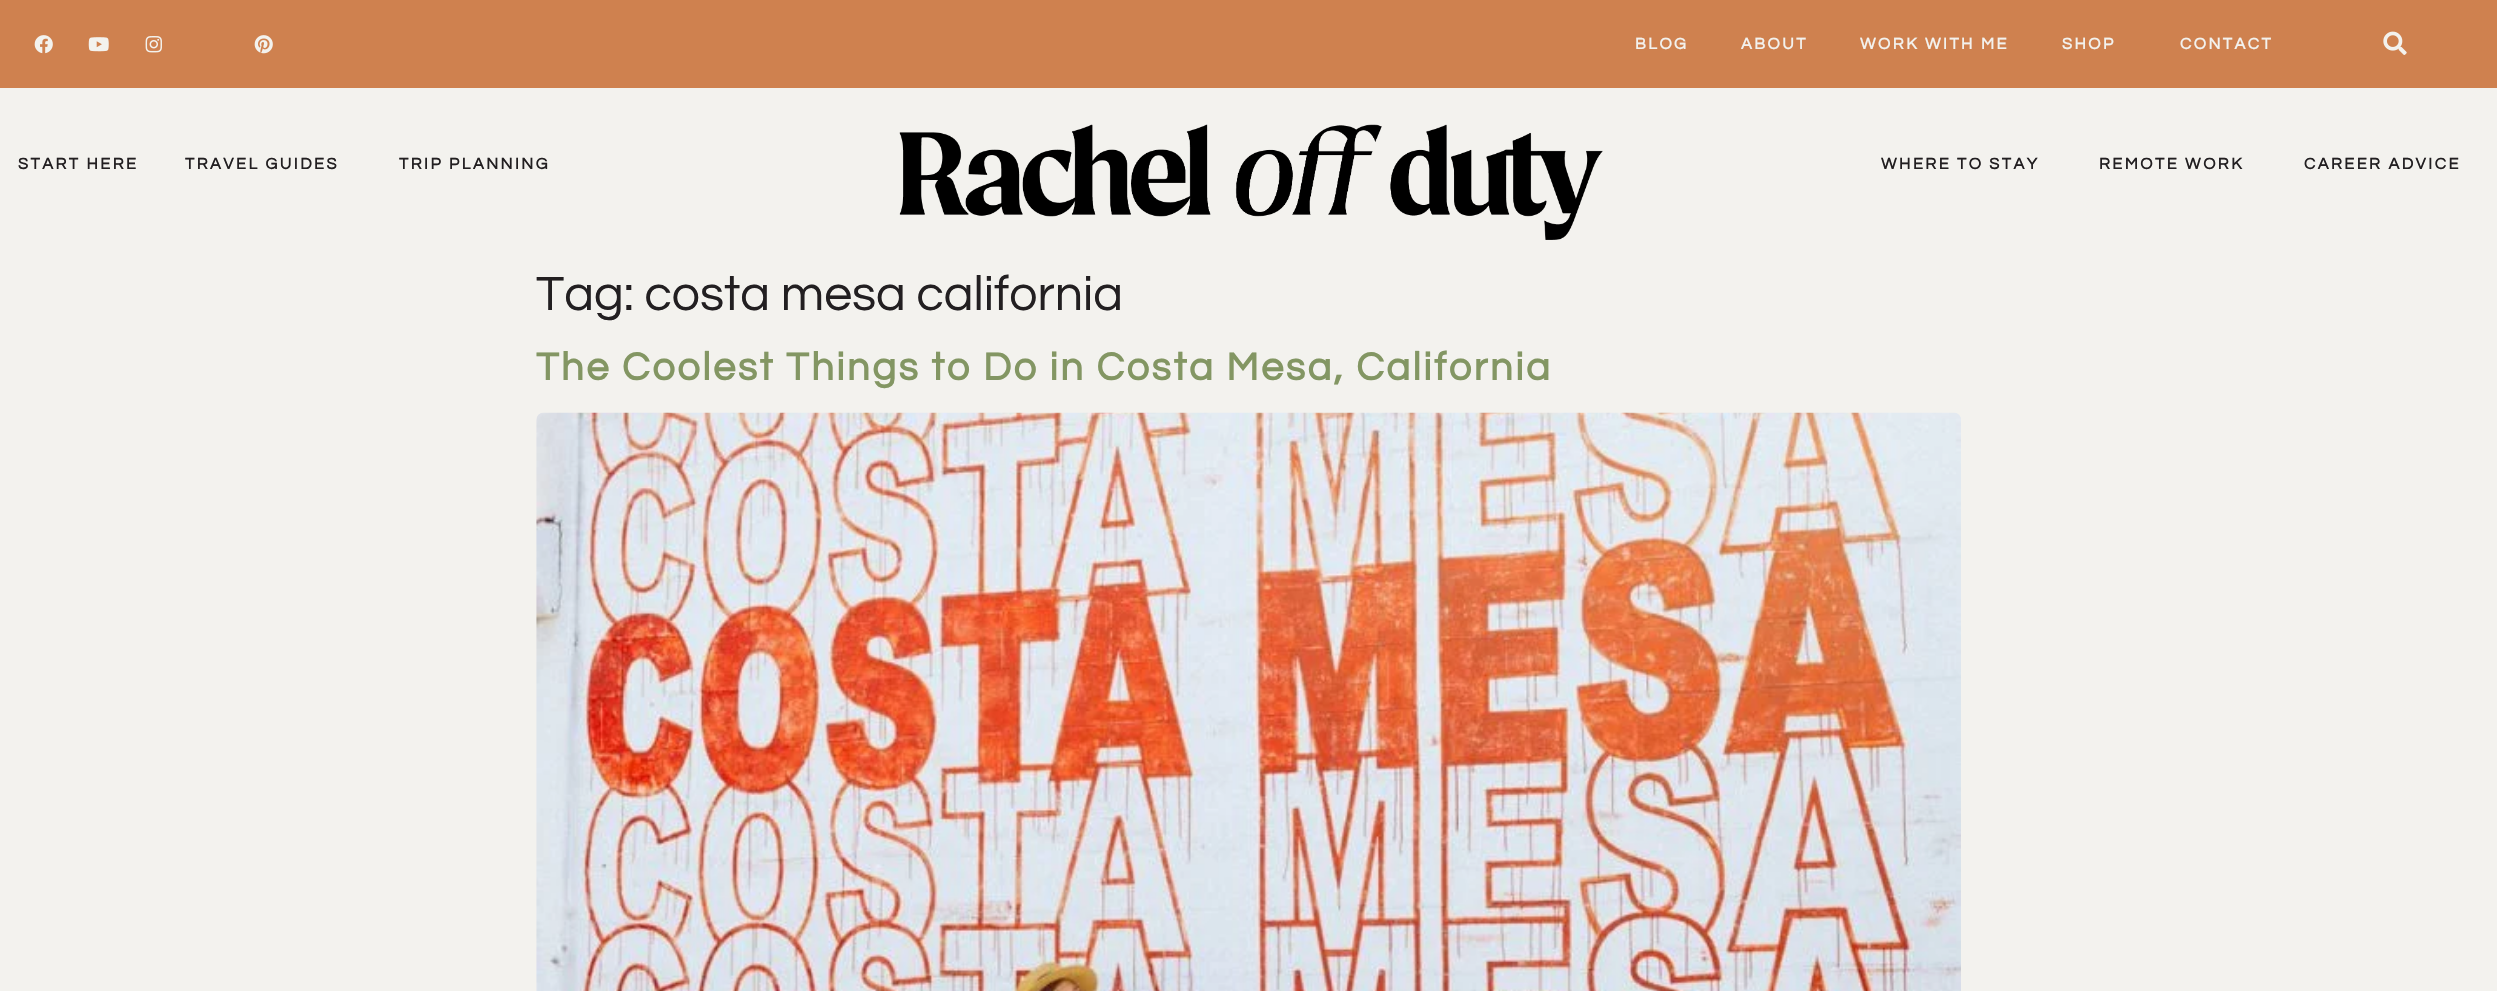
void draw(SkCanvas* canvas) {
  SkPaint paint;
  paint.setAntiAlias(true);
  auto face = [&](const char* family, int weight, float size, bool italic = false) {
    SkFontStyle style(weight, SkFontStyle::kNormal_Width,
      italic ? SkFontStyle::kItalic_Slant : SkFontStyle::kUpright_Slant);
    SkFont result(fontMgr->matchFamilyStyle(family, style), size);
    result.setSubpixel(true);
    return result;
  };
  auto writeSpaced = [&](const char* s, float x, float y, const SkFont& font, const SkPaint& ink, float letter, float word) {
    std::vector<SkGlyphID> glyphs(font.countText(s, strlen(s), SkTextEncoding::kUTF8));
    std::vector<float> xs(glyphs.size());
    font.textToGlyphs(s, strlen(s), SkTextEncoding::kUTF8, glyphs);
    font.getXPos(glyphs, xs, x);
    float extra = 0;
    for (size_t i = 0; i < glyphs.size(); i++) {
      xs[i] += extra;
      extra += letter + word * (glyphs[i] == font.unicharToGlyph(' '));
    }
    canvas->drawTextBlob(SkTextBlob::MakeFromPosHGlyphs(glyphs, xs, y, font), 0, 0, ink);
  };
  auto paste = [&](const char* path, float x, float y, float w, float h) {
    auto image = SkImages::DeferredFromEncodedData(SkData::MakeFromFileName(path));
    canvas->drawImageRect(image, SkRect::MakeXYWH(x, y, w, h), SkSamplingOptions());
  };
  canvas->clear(0xfff3f2ee);
  paint.setColor(0xffcf814f);
  canvas->drawRect(SkRect::MakeXYWH(0, 0, 2497, 88), paint);
  paste("img/1.png", 34, 35, 19, 19);
  paste("img/2.png", 88, 37, 21, 15);
  paste("img/3.png", 145, 36, 17, 17);
  paste("img/4.png", 254, 35, 19, 19);
  paste("img/5.png", 2383, 31, 24, 24);
  paste("img/6.png", 899, 124, 704, 116);
  paste("img/7.png", 536, 412, 1425, 579);
  auto f0 = face("Questrial", 700, 16.25f);
  paint.setColor(0xfff3f2ee);
  {
    const struct { const char* s; float x, y; } items[] = {
      {"BLOG", 1635, 49},
      {"ABOUT", 1741, 49},
      {"WORK WITH ME", 1860, 49},
      {"SHOP", 2062, 49},
      {"CONTACT", 2180, 49},
    };
    for (auto [s, x, y] : items) {
      writeSpaced(s, x, y, f0, paint, 2.5f, 0);
    }
  }
  paint.setColor(0xff221f21);
  {
    const struct { const char* s; float x, y; } items[] = {
      {"START HERE", 18, 169},
      {"TRAVEL GUIDES", 185, 169},
      {"TRIP PLANNING", 399, 169},
      {"WHERE TO STAY", 1881, 169},
      {"REMOTE WORK", 2099, 169},
      {"CAREER ADVICE", 2304, 169},
    };
    for (auto [s, x, y] : items) {
      writeSpaced(s, x, y, f0, paint, 2.5f, 0);
    }
  }
  auto f1 = face("Questrial", 400, 50);
  canvas->drawString("Tag: costa mesa california", 536, 310, f1, paint);
  auto f2 = face("Questrial", 700, 40);
  paint.setColor(0xff839663);
  writeSpaced("The Coolest Things to Do in Costa Mesa, California", 536, 380, f2, paint, 2.5f, 0);
}
